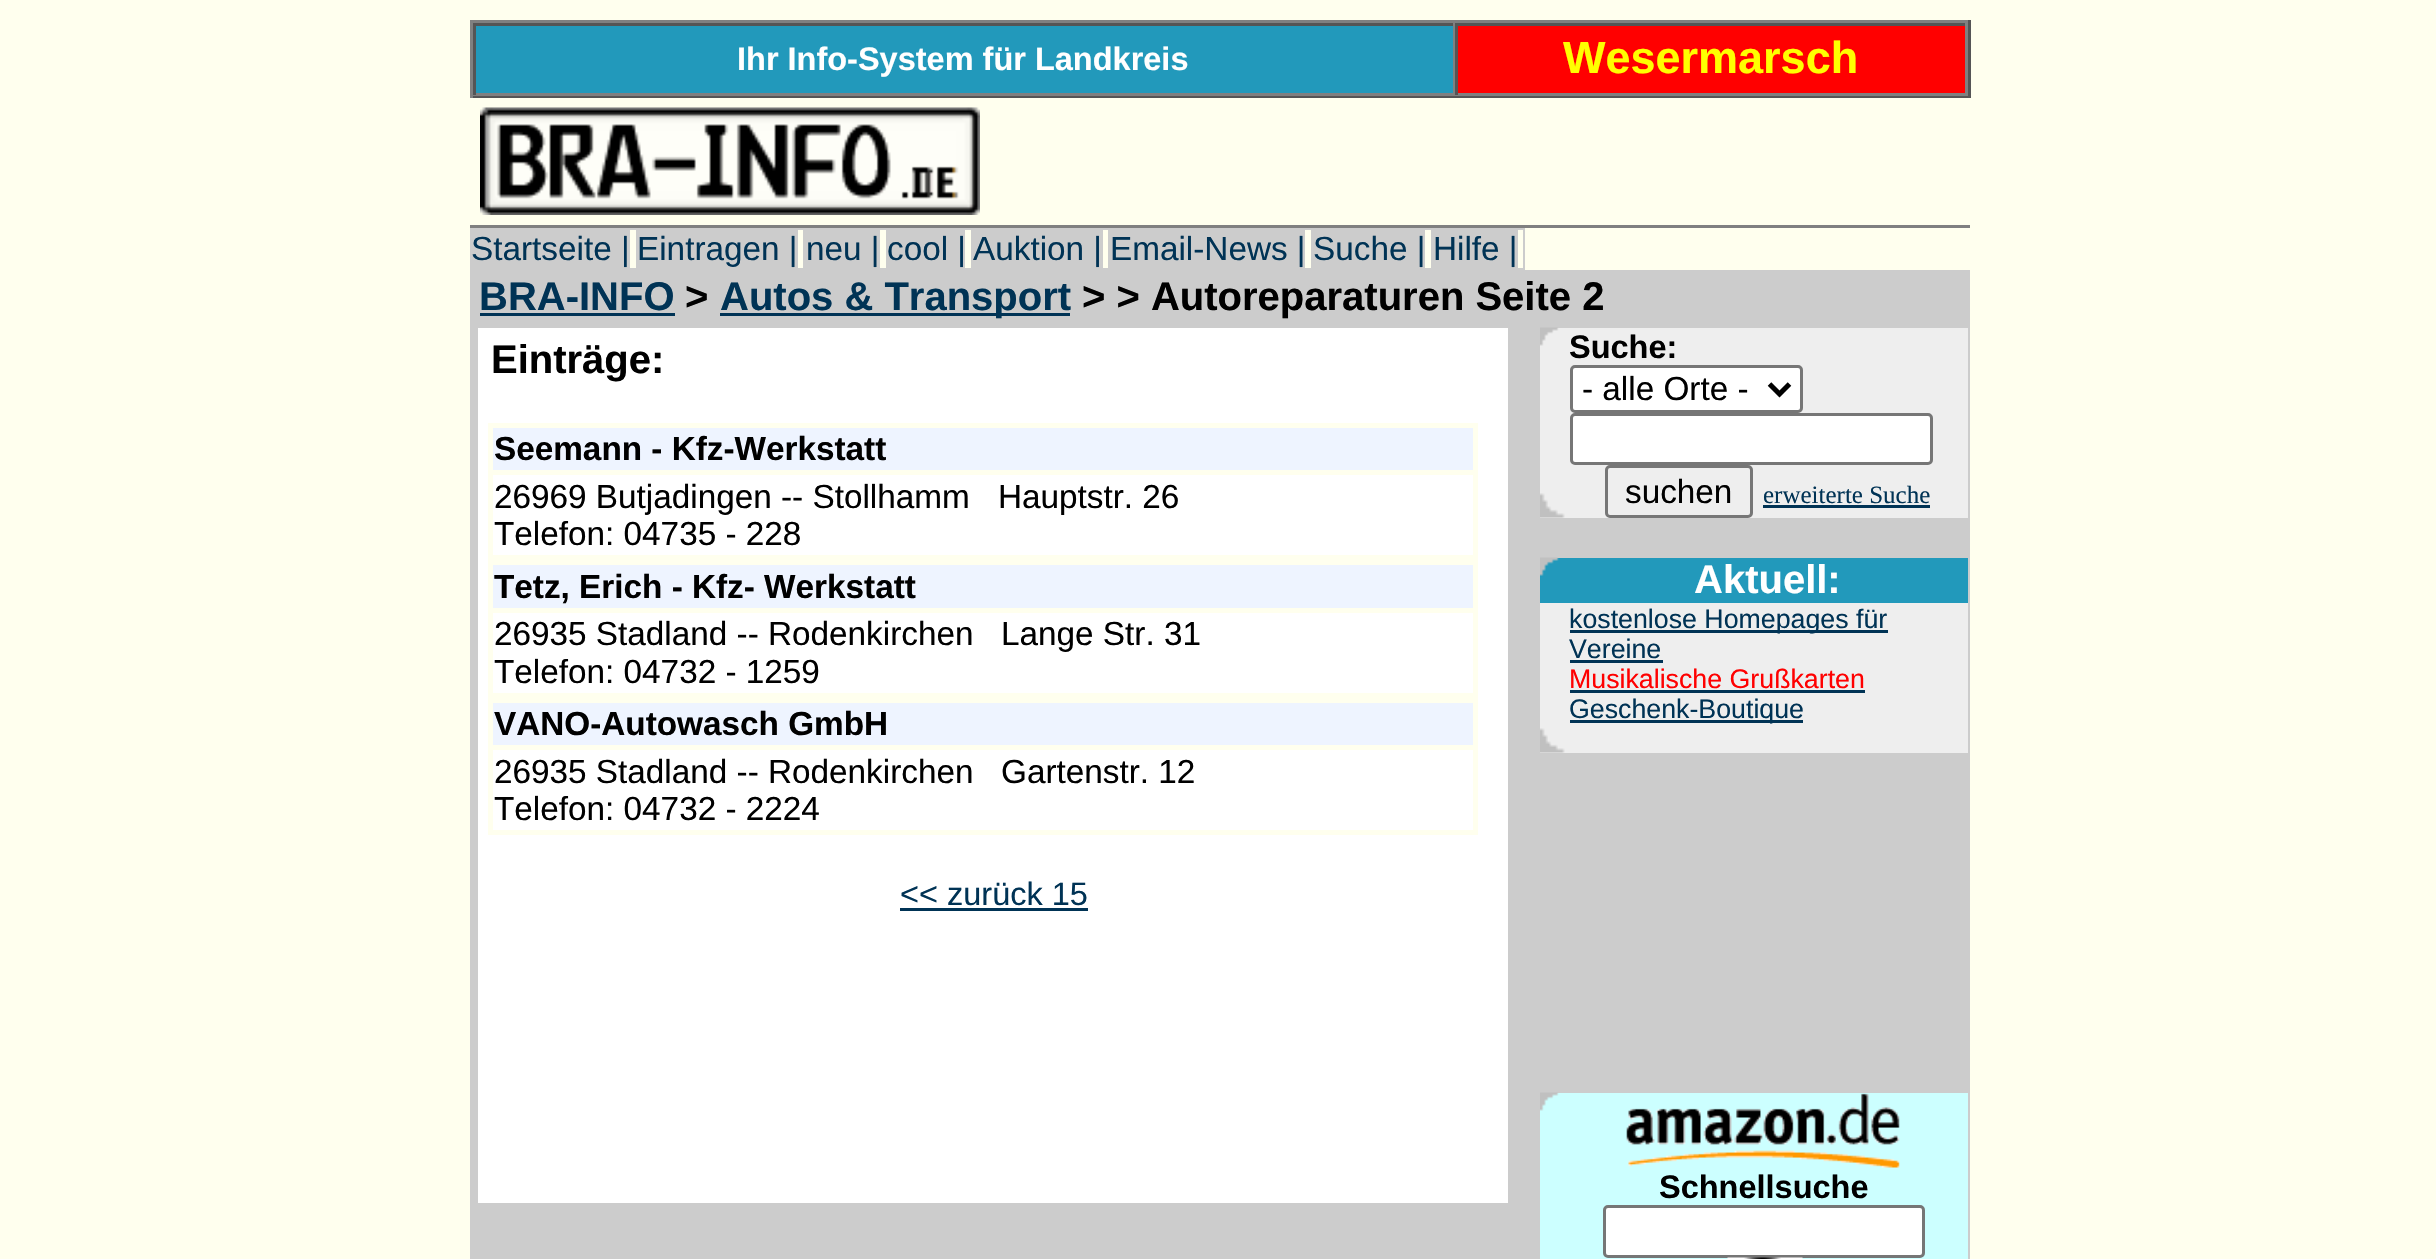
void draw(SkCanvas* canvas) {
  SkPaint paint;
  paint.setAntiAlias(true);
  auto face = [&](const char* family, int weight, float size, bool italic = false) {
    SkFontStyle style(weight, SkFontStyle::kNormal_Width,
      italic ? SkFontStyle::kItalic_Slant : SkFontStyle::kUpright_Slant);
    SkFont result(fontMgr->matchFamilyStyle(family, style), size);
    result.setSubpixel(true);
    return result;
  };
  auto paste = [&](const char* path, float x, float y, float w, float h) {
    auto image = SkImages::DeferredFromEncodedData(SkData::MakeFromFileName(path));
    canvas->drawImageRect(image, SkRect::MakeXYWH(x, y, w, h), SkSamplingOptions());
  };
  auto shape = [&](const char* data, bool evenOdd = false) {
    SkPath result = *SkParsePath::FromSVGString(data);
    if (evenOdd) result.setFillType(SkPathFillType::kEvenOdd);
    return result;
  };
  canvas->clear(0xffffffee);
  {
    const struct { float x, y, w, h; SkColor color; } items[] = {
      {470, 20, 1500, 3, 0xff808080},
      {1968, 20, 3, 78, 0xff555555},
      {470, 95, 1500, 3, 0xff555555},
      {470, 20, 3, 78, 0xff808080},
      {476, 26, 977, 67, 0xff2299bb},
      {473, 23, 1495, 3, 0xff555555},
      {1453, 23, 2, 72, 0xff808080},
      {473, 93, 982, 3, 0xff808080},
      {473, 23, 3, 72, 0xff555555},
      {1458, 26, 507, 67, 0xffff0000},
      {1965, 23, 3, 72, 0xff808080},
      {1455, 93, 513, 3, 0xff808080},
      {1455, 23, 3, 72, 0xff555555},
      {470, 225, 1500, 3, 0xff808080},
    };
    for (auto [x, y, w, h, color] : items) {
      paint.setColor(color);
      canvas->drawRect(SkRect::MakeXYWH(x, y, w, h), paint);
    }
  }
  paste("img/1.png", 480, 107, 500, 108);
  {
    const struct { float x, y, w, h; SkColor color; } items[] = {
      {470, 228, 1055, 42, 0xffcccccc},
      {630, 230, 6, 38, 0xffffffee},
      {798, 230, 5, 38, 0xffffffee},
      {880, 230, 6, 38, 0xffffffee},
      {965, 230, 6, 38, 0xffffffee},
      {1103, 230, 5, 38, 0xffffffee},
      {1305, 230, 6, 38, 0xffffffee},
      {1425, 230, 6, 38, 0xffffffee},
      {1518, 230, 5, 38, 0xffffffee},
      {470, 270, 1500, 989, 0xffcccccc},
      {480, 313, 195, 3, 0xff003355},
      {720, 313, 350, 3, 0xff003355},
      {478, 328, 1030, 875, 0xffffffff},
      {488, 423, 990, 412, 0xffffffee},
      {493, 428, 980, 42, 0xffeef4ff},
      {493, 475, 980, 80, 0xffffffff},
      {493, 565, 980, 43, 0xffeef4ff},
      {493, 613, 980, 80, 0xffffffff},
      {493, 703, 980, 42, 0xffeef4ff},
      {493, 750, 980, 80, 0xffffffff},
      {900, 908, 188, 3, 0xff003355},
      {1540, 328, 428, 190, 0xffeeeeee},
    };
    for (auto [x, y, w, h, color] : items) {
      paint.setColor(color);
      canvas->drawRect(SkRect::MakeXYWH(x, y, w, h), paint);
    }
  }
  paste("img/2.png", 1540, 327, 19, 19);
  paint.setColor(0xffffffff);
  canvas->drawRoundRect(SkRect::MakeXYWH(1571.5f, 366.5f, 230, 45), 3.5f, 3.5f, paint);
  paint.setStroke(true);
  paint.setStrokeWidth(3);
  paint.setColor(0xff767676);
  canvas->drawRoundRect(SkRect::MakeXYWH(1571.5f, 366.5f, 230, 45), 3.5f, 3.5f, paint);
  paint.setStrokeWidth(5);
  paint.setColor(0xff000000);
  canvas->drawPath(shape("M1769.5 384L1779.5 394L1789.5 384"), paint);
  paint.setStroke(false);
  paint.setColor(0xffffffff);
  canvas->drawRoundRect(SkRect::MakeXYWH(1571.5f, 414.5f, 360, 49), 3.5f, 3.5f, paint);
  paint.setStroke(true);
  paint.setStrokeWidth(3);
  paint.setColor(0xff767676);
  canvas->drawRoundRect(SkRect::MakeXYWH(1571.5f, 414.5f, 360, 49), 3.5f, 3.5f, paint);
  paste("img/3.png", 1540, 493, 25, 25);
  canvas->drawRoundRect(SkRect::MakeXYWH(1606.5f, 466.5f, 145, 50), 3.5f, 3.5f, paint);
  paint.setStroke(false);
  {
    const struct { float x, y, w, h; SkColor color; } items[] = {
      {1763, 505, 167, 3, 0xff003355},
      {1540, 603, 428, 150, 0xffeeeeee},
      {1540, 558, 428, 45, 0xff2299bb},
    };
    for (auto [x, y, w, h, color] : items) {
      paint.setColor(color);
      canvas->drawRect(SkRect::MakeXYWH(x, y, w, h), paint);
    }
  }
  paste("img/4.png", 1540, 557, 19, 19);
  {
    const struct { float x, y, w, h; SkColor color; } items[] = {
      {1570, 630, 318, 3, 0xff003355},
      {1570, 660, 93, 3, 0xff003355},
      {1570, 690, 295, 3, 0xff003355},
      {1570, 720, 233, 3, 0xff003355},
    };
    for (auto [x, y, w, h, color] : items) {
      paint.setColor(color);
      canvas->drawRect(SkRect::MakeXYWH(x, y, w, h), paint);
    }
  }
  paste("img/5.png", 1540, 728, 25, 25);
  paint.setColor(0xffccffff);
  canvas->drawRect(SkRect::MakeXYWH(1540, 1093, 428, 166), paint);
  paste("img/6.png", 1540, 1092, 19, 19);
  paste("img/7.png", 1626, 1093, 274, 75);
  paint.setColor(0xffffffff);
  canvas->drawRoundRect(SkRect::MakeXYWH(1604.5f, 1206.5f, 319, 50), 3.5f, 3.5f, paint);
  paint.setStroke(true);
  paint.setColor(0xff767676);
  canvas->drawRoundRect(SkRect::MakeXYWH(1604.5f, 1206.5f, 319, 50), 3.5f, 3.5f, paint);
  paste("img/8.png", 1727, 1257, 76, 2);
  auto f0 = face("Liberation Sans", 700, 32.5f);
  paint.setStroke(false);
  paint.setColor(0xffffffff);
  canvas->drawString("Ihr Info-System für Landkreis", 737, 70, f0, paint);
  auto f1 = face("Liberation Sans", 700, 45);
  paint.setColor(0xffffff00);
  canvas->drawString("Wesermarsch", 1563, 73, f1, paint);
  auto f2 = face("Liberation Sans", 400, 33.3f);
  paint.setColor(0xff003355);
  {
    const struct { const char* s; float x, y; } items[] = {
      {"Startseite |", 471, 260},
      {"Eintragen |", 637, 260},
      {"neu |", 806, 260},
      {"cool |", 887, 260},
      {"Auktion |", 973, 260},
      {"Email-News |", 1110, 260},
      {"Suche |", 1313, 260},
      {"Hilfe |", 1433, 260},
    };
    for (auto [s, x, y] : items) {
      canvas->drawString(s, x, y, f2, paint);
    }
  }
  auto f3 = face("Liberation Sans", 700, 40);
  canvas->drawString("BRA-INFO", 479, 310, f3, paint);
  paint.setColor(0xff000000);
  canvas->drawString(">", 685, 310, f3, paint);
  paint.setColor(0xff003355);
  canvas->drawString("Autos & Transport", 720, 310, f3, paint);
  paint.setColor(0xff000000);
  canvas->drawString("> > Autoreparaturen Seite 2", 1082, 310, f3, paint);
  canvas->drawString("Einträge:", 491, 373, f3, paint);
  auto f4 = face("Liberation Sans", 700, 33.3f);
  canvas->drawString("Seemann - Kfz-Werkstatt", 494, 460, f4, paint);
  {
    const struct { const char* s; float x, y; } items[] = {
      {"26969 Butjadingen -- Stollhamm", 494, 508},
      {"Hauptstr. 26", 998, 508},
      {"Telefon: 04735 - 228", 494, 545},
    };
    for (auto [s, x, y] : items) {
      canvas->drawString(s, x, y, f2, paint);
    }
  }
  canvas->drawString("Tetz, Erich - Kfz- Werkstatt", 494, 598, f4, paint);
  {
    const struct { const char* s; float x, y; } items[] = {
      {"26935 Stadland -- Rodenkirchen", 494, 645},
      {"Lange Str. 31", 1001, 645},
      {"Telefon: 04732 - 1259", 494, 683},
    };
    for (auto [s, x, y] : items) {
      canvas->drawString(s, x, y, f2, paint);
    }
  }
  canvas->drawString("VANO-Autowasch GmbH", 494, 735, f4, paint);
  {
    const struct { const char* s; float x, y; } items[] = {
      {"26935 Stadland -- Rodenkirchen", 494, 783},
      {"Gartenstr. 12", 1001, 783},
      {"Telefon: 04732 - 2224", 494, 820},
    };
    for (auto [s, x, y] : items) {
      canvas->drawString(s, x, y, f2, paint);
    }
  }
  auto f5 = face("Liberation Sans", 400, 32.5f);
  paint.setColor(0xff003355);
  canvas->drawString("<< zurück 15", 900, 905, f5, paint);
  paint.setColor(0xff000000);
  canvas->drawString("Suche:", 1569, 358, f0, paint);
  canvas->drawString("- alle Orte -", 1582, 400, f2, paint);
  canvas->drawString("suchen", 1625, 503, f2, paint);
  auto f6 = face("Liberation Serif", 400, 25);
  paint.setColor(0xff003355);
  canvas->drawString("erweiterte Suche", 1763, 503, f6, paint);
  paint.setColor(0xffffffff);
  canvas->drawString("Aktuell:", 1694, 593, f3, paint);
  auto f7 = face("Liberation Sans", 400, 26.75f);
  paint.setColor(0xff003355);
  canvas->drawString("kostenlose Homepages für", 1569, 628, f7, paint);
  canvas->drawString("Vereine", 1569, 658, f7, paint);
  paint.setColor(0xffff0000);
  canvas->drawString("Musikalische Grußkarten", 1569, 688, f7, paint);
  paint.setColor(0xff003355);
  canvas->drawString("Geschenk-Boutique", 1569, 718, f7, paint);
  paint.setColor(0xff000000);
  canvas->drawString("Schnellsuche", 1659, 1198, f0, paint);
}
